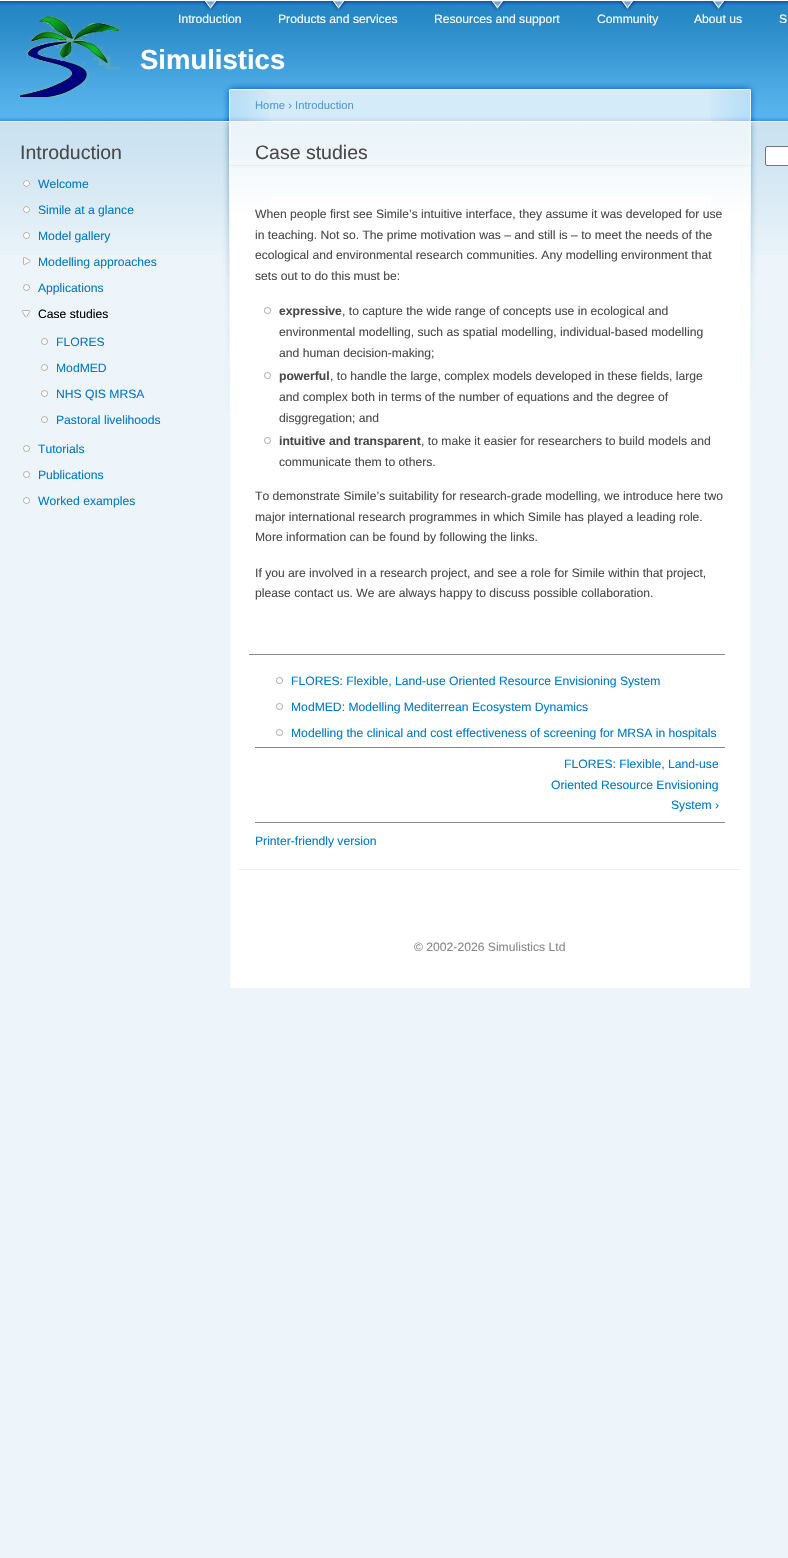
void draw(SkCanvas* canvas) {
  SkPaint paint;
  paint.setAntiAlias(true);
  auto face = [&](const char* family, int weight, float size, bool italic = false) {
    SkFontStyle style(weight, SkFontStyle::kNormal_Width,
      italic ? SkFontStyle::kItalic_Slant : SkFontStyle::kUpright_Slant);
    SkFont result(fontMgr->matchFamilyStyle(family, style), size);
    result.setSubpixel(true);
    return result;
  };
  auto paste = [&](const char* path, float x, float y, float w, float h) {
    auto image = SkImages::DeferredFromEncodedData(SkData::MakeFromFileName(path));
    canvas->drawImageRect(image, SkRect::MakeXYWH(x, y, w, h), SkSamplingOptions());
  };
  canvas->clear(0xffedf5fa);
  paste("img/1.png", 0, 0, 788, 255);
  paste("img/2.png", 203, 1, 16, 10);
  paste("img/2.png", 331, 1, 16, 10);
  paste("img/3.png", 490, 1, 15, 10);
  paste("img/3.png", 620, 1, 15, 10);
  paste("img/2.png", 711, 1, 16, 10);
  paste("img/4.png", 20, 15, 100, 82);
  paste("img/5.png", 23, 180, 7, 7);
  paste("img/6.png", 23, 206, 7, 7);
  paste("img/7.png", 23, 232, 7, 7);
  paste("img/8.png", 23, 256, 8, 10);
  paste("img/9.png", 23, 284, 7, 7);
  paste("img/10.png", 21, 310, 10, 8);
  paste("img/9.png", 41, 338, 7, 7);
  paste("img/9.png", 41, 364, 7, 7);
  paste("img/9.png", 41, 390, 7, 7);
  paste("img/9.png", 41, 416, 7, 7);
  paste("img/9.png", 23, 445, 7, 7);
  paste("img/9.png", 23, 471, 7, 7);
  paste("img/9.png", 23, 497, 7, 7);
  paint.setColor(0xffffffff);
  canvas->drawRect(SkRect::MakeXYWH(230, 197, 520, 791), paint);
  paste("img/11.png", 230, 80, 520, 117);
  paste("img/12.png", 710, 84, 47, 311);
  paste("img/13.png", 222, 84, 48, 326);
  paint.setColor(0xffe9eff3);
  canvas->drawRect(SkRect::MakeXYWH(229, 165, 522, 1), paint);
  canvas->drawRect(SkRect::MakeXYWH(239, 869, 502, 1), paint);
  paste("img/14.png", 264, 307, 7, 7);
  paste("img/14.png", 264, 372, 7, 7);
  paste("img/14.png", 264, 437, 7, 7);
  paint.setColor(0xff888888);
  canvas->drawRect(SkRect::MakeXYWH(249, 654, 476, 1), paint);
  paste("img/14.png", 276, 677, 7, 7);
  paste("img/14.png", 276, 703, 7, 7);
  paste("img/14.png", 276, 729, 7, 7);
  canvas->drawRect(SkRect::MakeXYWH(255, 747, 470, 1), paint);
  canvas->drawRect(SkRect::MakeXYWH(255, 822, 470, 1), paint);
  paint.setColor(0xffffffff);
  canvas->drawRoundRect(SkRect::MakeXYWH(765.5f, 146.5f, 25, 19), 1.5f, 1.5f, paint);
  paint.setStroke(true);
  paint.setStrokeWidth(1);
  paint.setColor(0xff767676);
  canvas->drawRoundRect(SkRect::MakeXYWH(765.5f, 146.5f, 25, 19), 1.5f, 1.5f, paint);
  auto f0 = face("Liberation Sans", 400, 12.15f);
  paint.setStroke(false);
  paint.setColor(0xffffffff);
  {
    const struct { const char* s; float x, y; } items[] = {
      {"Introduction", 178, 23},
      {"Products and services", 278, 23},
      {"Resources and support", 434, 23},
      {"Community", 597, 23},
      {"About us", 694, 23},
      {"S", 779, 23},
    };
    for (auto [s, x, y] : items) {
      canvas->drawString(s, x, y, f0, paint);
    }
  }
  auto f1 = face("Liberation Sans", 700, 27.5f);
  canvas->drawString("Simulistics", 140, 69, f1, paint);
  auto f2 = face("Liberation Sans", 400, 19.5f);
  paint.setColor(0xff494949);
  canvas->drawString("Introduction", 20, 159, f2, paint);
  paint.setColor(0xff027ac6);
  {
    const struct { const char* s; float x, y; } items[] = {
      {"Welcome", 38, 188},
      {"Simile at a glance", 38, 214},
      {"Model gallery", 38, 240},
      {"Modelling approaches", 38, 266},
      {"Applications", 38, 292},
    };
    for (auto [s, x, y] : items) {
      canvas->drawString(s, x, y, f0, paint);
    }
  }
  paint.setColor(0xff000000);
  canvas->drawString("Case studies", 38, 318, f0, paint);
  paint.setColor(0xff027ac6);
  {
    const struct { const char* s; float x, y; } items[] = {
      {"FLORES", 56, 346},
      {"ModMED", 56, 372},
      {"NHS QIS MRSA", 56, 398},
      {"Pastoral livelihoods", 56, 424},
      {"Tutorials", 38, 453},
      {"Publications", 38, 479},
      {"Worked examples", 38, 505},
    };
    for (auto [s, x, y] : items) {
      canvas->drawString(s, x, y, f0, paint);
    }
  }
  auto f3 = face("Liberation Sans", 400, 11.25f);
  paint.setColor(0xff529ad6);
  canvas->drawString("Home › Introduction", 255, 109, f3, paint);
  paint.setColor(0xff494949);
  canvas->drawString("Case studies", 255, 159, f2, paint);
  {
    const struct { const char* s; float x, y; } items[] = {
      {"When people first see Simile’s intuitive interface, they assume it was developed for use", 255, 218},
      {"in teaching. Not so. The prime motivation was – and still is – to meet the needs of the", 255, 239},
      {"ecological and environmental research communities. Any modelling environment that", 255, 259},
      {"sets out to do this must be:", 255, 280},
    };
    for (auto [s, x, y] : items) {
      canvas->drawString(s, x, y, f0, paint);
    }
  }
  auto f4 = face("Liberation Sans", 700, 12.15f);
  canvas->drawString("expressive", 279, 315, f4, paint);
  {
    const struct { const char* s; float x, y; } items[] = {
      {", to capture the wide range of concepts use in ecological and", 342, 315},
      {"environmental modelling, such as spatial modelling, individual-based modelling", 279, 336},
      {"and human decision-making;", 279, 357},
    };
    for (auto [s, x, y] : items) {
      canvas->drawString(s, x, y, f0, paint);
    }
  }
  canvas->drawString("powerful", 279, 380, f4, paint);
  {
    const struct { const char* s; float x, y; } items[] = {
      {", to handle the large, complex models developed in these fields, large", 330, 380},
      {"and complex both in terms of the number of equations and the degree of", 279, 401},
      {"disggregation; and", 279, 422},
    };
    for (auto [s, x, y] : items) {
      canvas->drawString(s, x, y, f0, paint);
    }
  }
  canvas->drawString("intuitive and transparent", 279, 445, f4, paint);
  {
    const struct { const char* s; float x, y; } items[] = {
      {", to make it easier for researchers to build models and", 421, 445},
      {"communicate them to others.", 279, 466},
      {"To demonstrate Simile’s suitability for research-grade modelling, we introduce here two", 255, 500},
      {"major international research programmes in which Simile has played a leading role.", 255, 521},
      {"More information can be found by following the links.", 255, 541},
      {"If you are involved in a research project, and see a role for Simile within that project,", 255, 577},
      {"please contact us. We are always happy to discuss possible collaboration.", 255, 597},
    };
    for (auto [s, x, y] : items) {
      canvas->drawString(s, x, y, f0, paint);
    }
  }
  paint.setColor(0xff027ac6);
  {
    const struct { const char* s; float x, y; } items[] = {
      {"FLORES: Flexible, Land-use Oriented Resource Envisioning System", 291, 685},
      {"ModMED: Modelling Mediterrean Ecosystem Dynamics", 291, 711},
      {"Modelling the clinical and cost effectiveness of screening for MRSA in hospitals", 291, 737},
      {"FLORES: Flexible, Land-use", 564, 768},
      {"Oriented Resource Envisioning", 551, 789},
      {"System ›", 671, 809},
      {"Printer-friendly version", 255, 845},
    };
    for (auto [s, x, y] : items) {
      canvas->drawString(s, x, y, f0, paint);
    }
  }
  paint.setColor(0xff898989);
  canvas->drawString("© 2002-2026 Simulistics Ltd", 414, 951, f0, paint);
}
